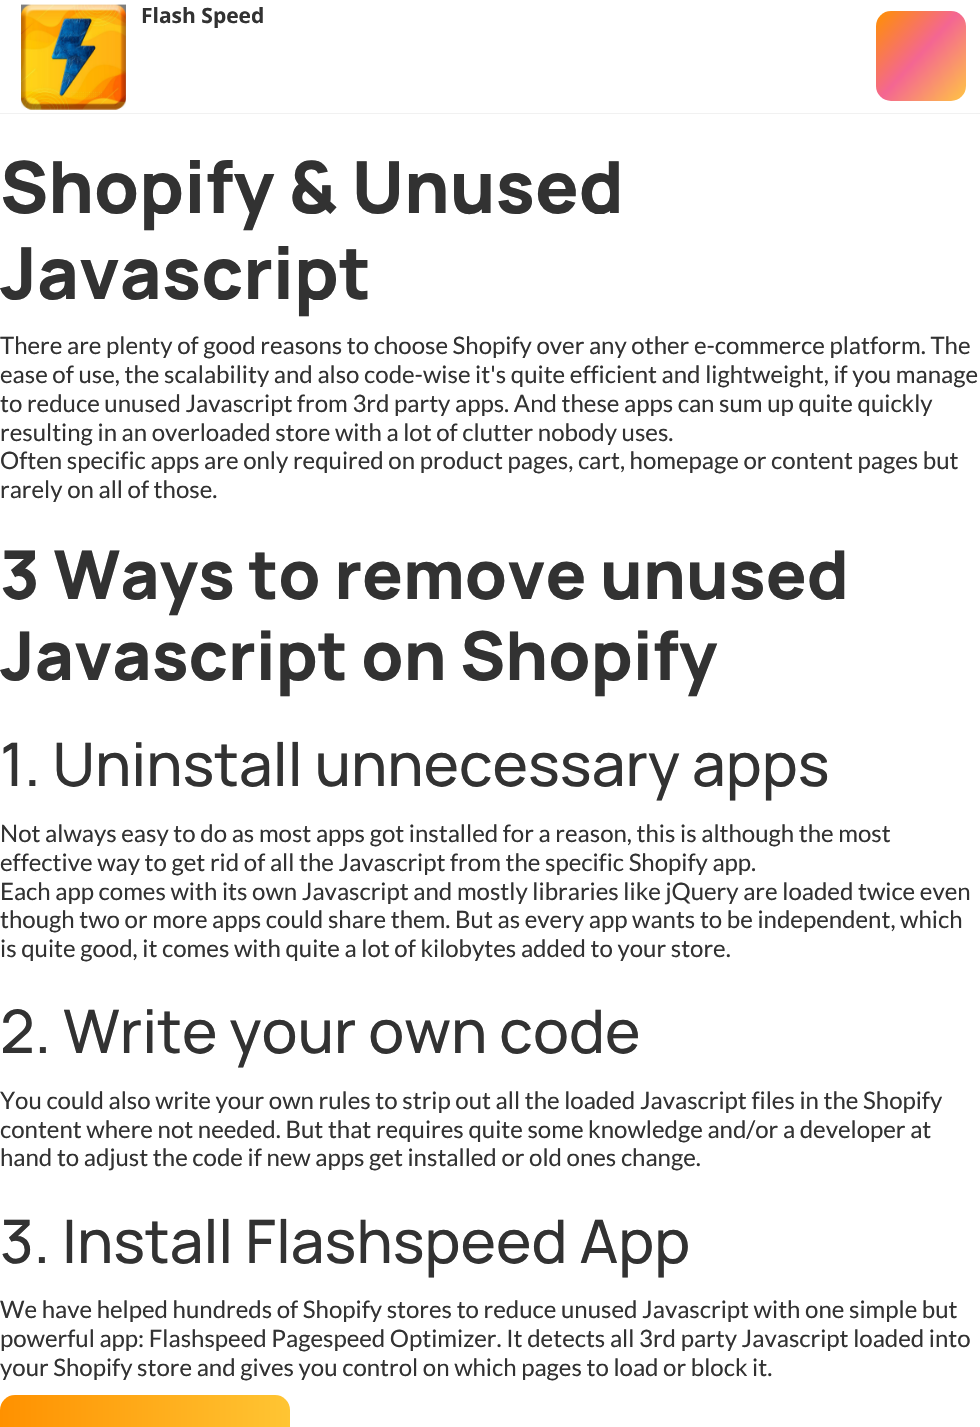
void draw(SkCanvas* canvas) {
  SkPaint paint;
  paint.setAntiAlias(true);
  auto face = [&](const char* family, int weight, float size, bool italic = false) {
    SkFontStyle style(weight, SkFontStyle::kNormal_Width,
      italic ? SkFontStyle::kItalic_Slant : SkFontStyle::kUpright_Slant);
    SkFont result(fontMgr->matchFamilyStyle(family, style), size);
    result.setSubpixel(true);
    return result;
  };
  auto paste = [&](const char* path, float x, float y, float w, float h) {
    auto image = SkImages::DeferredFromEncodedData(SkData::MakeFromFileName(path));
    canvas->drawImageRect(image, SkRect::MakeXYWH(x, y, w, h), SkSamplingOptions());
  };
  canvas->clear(0xffffffff);
  paint.setColor(0xfff1f1f1);
  canvas->drawRect(SkRect::MakeXYWH(0, 113, 980, 1), paint);
  paste("img/1.png", 21, 4, 105, 106);
  {
    const SkColor colors[] = {0xffff9100, 0xfff46692, 0xffffc444};
    const float stops[] = {0, 0.49f, 1};
    const SkPoint ends[] = {{874, 13}, {968, 98}};
    paint.setShader(SkGradientShader::MakeLinear(ends, colors, stops, 3, SkTileMode::kClamp));
    paint.setAlpha(255);
  }
  canvas->drawRoundRect(SkRect::MakeXYWH(876, 11, 90, 90), 15, 15, paint);
  {
    const SkColor colors[] = {0xffff9100, 0xffffc533, 0xffffc444};
    const float stops[] = {0, 1, 1};
    const SkPoint ends[] = {{0, 1427}, {290, 1427}};
    paint.setShader(SkGradientShader::MakeLinear(ends, colors, stops, 3, SkTileMode::kClamp));
    paint.setAlpha(255);
  }
  canvas->drawRoundRect(SkRect::MakeXYWH(0, 1395, 290, 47), 15, 15, paint);
  auto f0 = face("Open Sans", 700, 21);
  paint.setShader(nullptr);
  paint.setColor(0xff323232);
  canvas->drawString("Flash Speed", 141, 23, f0, paint);
  auto f1 = face("Manrope", 800, 72);
  canvas->drawString("Shopify & Unused", 0, 213, f1, paint);
  canvas->drawString("Javascript", 0, 299, f1, paint);
  auto f2 = face("Lato", 400, 24);
  {
    const struct { const char* s; float x, y; } items[] = {
      {"There are plenty of good reasons to choose Shopify over any other e-commerce platform. The", 0, 354},
      {"ease of use, the scalability and also code-wise it's quite efficient and lightweight, if you manage", 0, 383},
      {"to reduce unused Javascript from 3rd party apps. And these apps can sum up quite quickly", 0, 412},
      {"resulting in an overloaded store with a lot of clutter nobody uses.", 0, 441},
      {"Often specific apps are only required on product pages, cart, homepage or content pages but", 0, 469},
      {"rarely on all of those.", 0, 498},
    };
    for (auto [s, x, y] : items) {
      canvas->drawString(s, x, y, f2, paint);
    }
  }
  auto f3 = face("Manrope", 800, 67.5f);
  canvas->drawString("3 Ways to remove unused", 0, 599, f3, paint);
  canvas->drawString("Javascript on Shopify", 0, 680, f3, paint);
  auto f4 = face("Manrope", 500, 60);
  canvas->drawString("1. Uninstall unnecessary apps", 0, 786, f4, paint);
  {
    const struct { const char* s; float x, y; } items[] = {
      {"Not always easy to do as most apps got installed for a reason, this is although the most", 0, 842},
      {"effective way to get rid of all the Javascript from the specific Shopify app.", 0, 871},
      {"Each app comes with its own Javascript and mostly libraries like jQuery are loaded twice even", 0, 900},
      {"though two or more apps could share them. But as every app wants to be independent, which", 0, 928},
      {"is quite good, it comes with quite a lot of kilobytes added to your store.", 0, 957},
    };
    for (auto [s, x, y] : items) {
      canvas->drawString(s, x, y, f2, paint);
    }
  }
  canvas->drawString("2. Write your own code", 0, 1053, f4, paint);
  {
    const struct { const char* s; float x, y; } items[] = {
      {"You could also write your own rules to strip out all the loaded Javascript files in the Shopify", 0, 1109},
      {"content where not needed. But that requires quite some knowledge and/or a developer at", 0, 1138},
      {"hand to adjust the code if new apps get installed or old ones change.", 0, 1166},
    };
    for (auto [s, x, y] : items) {
      canvas->drawString(s, x, y, f2, paint);
    }
  }
  canvas->drawString("3. Install Flashspeed App", 0, 1263, f4, paint);
  {
    const struct { const char* s; float x, y; } items[] = {
      {"We have helped hundreds of Shopify stores to reduce unused Javascript with one simple but", 0, 1318},
      {"powerful app: Flashspeed Pagespeed Optimizer. It detects all 3rd party Javascript loaded into", 0, 1347},
      {"your Shopify store and gives you control on which pages to load or block it.", 0, 1376},
    };
    for (auto [s, x, y] : items) {
      canvas->drawString(s, x, y, f2, paint);
    }
  }
}
